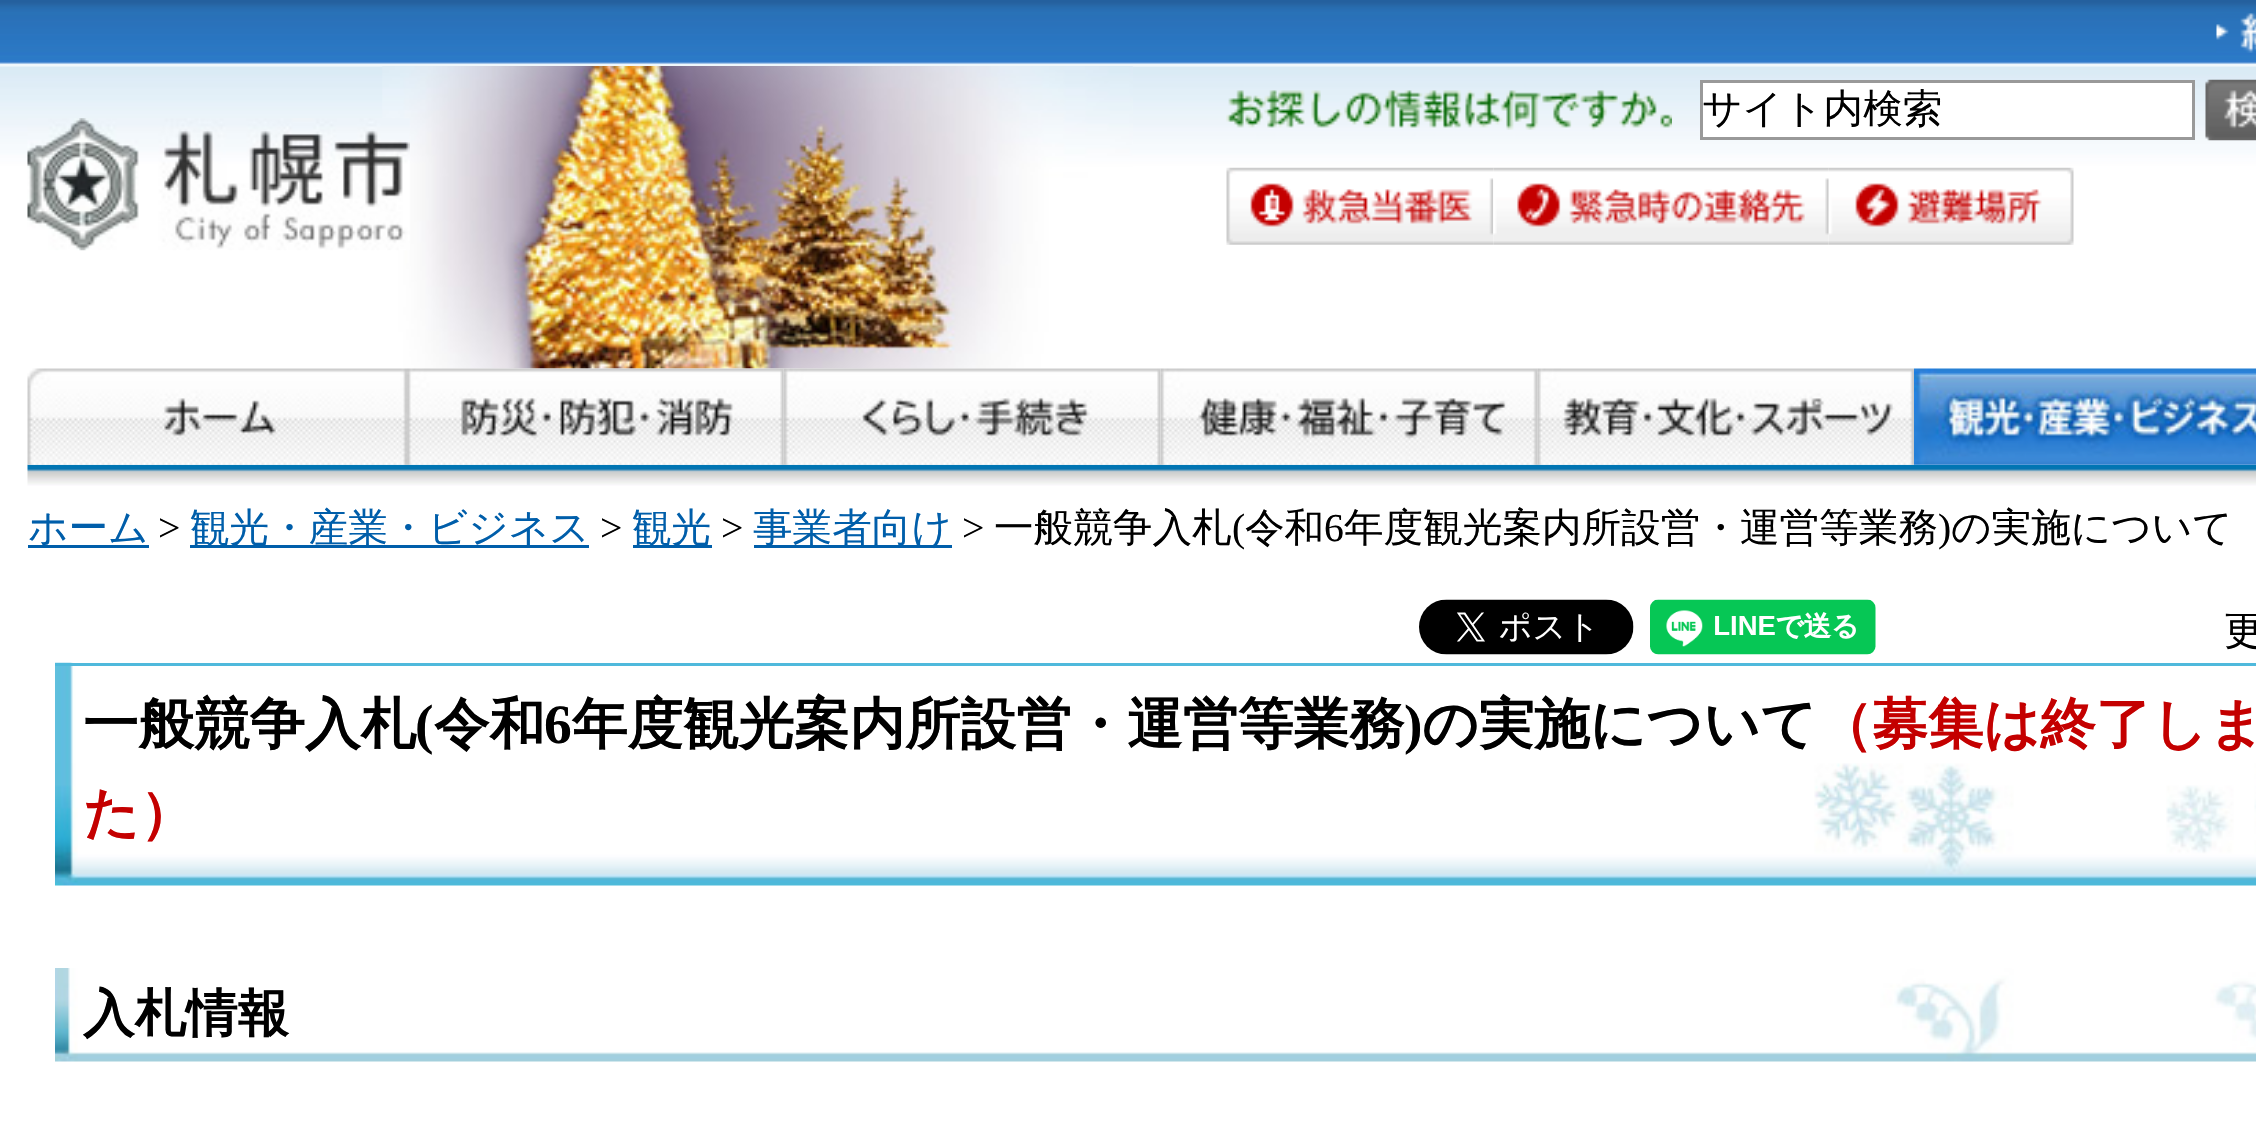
void draw(SkCanvas* canvas) {
  SkPaint paint;
  paint.setAntiAlias(true);
  auto face = [&](const char* family, int weight, float size, bool italic = false) {
    SkFontStyle style(weight, SkFontStyle::kNormal_Width,
      italic ? SkFontStyle::kItalic_Slant : SkFontStyle::kUpright_Slant);
    SkFont result(fontMgr->matchFamilyStyle(family, style), size);
    result.setSubpixel(true);
    return result;
  };
  auto paste = [&](const char* path, float x, float y, float w, float h) {
    auto image = SkImages::DeferredFromEncodedData(SkData::MakeFromFileName(path));
    canvas->drawImageRect(image, SkRect::MakeXYWH(x, y, w, h), SkSamplingOptions());
  };
  canvas->clear(0xffffffff);
  paste("img/1.png", 0, 0, 2256, 215);
  paste("img/2.png", 382, 66, 751, 303);
  paste("img/3.png", 2216, 13, 40, 40);
  paste("img/4.png", 1226, 90, 446, 40);
  paint.setColor(0xffffffff);
  canvas->drawRect(SkRect::MakeXYWH(1701.5f, 81.5f, 492, 57), paint);
  paint.setStroke(true);
  paint.setStrokeWidth(3);
  paint.setColor(0xff999999);
  canvas->drawRect(SkRect::MakeXYWH(1701.5f, 81.5f, 492, 57), paint);
  paste("img/5.png", 2205, 79, 51, 62);
  paste("img/6.png", 1226, 167, 268, 78);
  paste("img/7.png", 1493, 167, 336, 78);
  paste("img/8.png", 1828, 167, 246, 78);
  paste("img/9.png", 27, 118, 383, 133);
  paste("img/10.png", 27, 464, 2229, 22);
  paste("img/11.png", 27, 368, 380, 97);
  paste("img/12.png", 407, 368, 377, 97);
  paste("img/13.png", 783, 368, 378, 97);
  paste("img/14.png", 1160, 368, 378, 97);
  paste("img/15.png", 1537, 368, 377, 97);
  paste("img/16.png", 1914, 368, 342, 97);
  paint.setStroke(false);
  {
    const struct { float x, y, w, h; SkColor color; } items[] = {
      {28, 545, 121, 3, 0xff005eaa},
      {190, 545, 399, 3, 0xff005eaa},
      {633, 545, 79, 3, 0xff005eaa},
      {754, 545, 198, 3, 0xff005eaa},
    };
    for (auto [x, y, w, h, color] : items) {
      paint.setColor(color);
      canvas->drawRect(SkRect::MakeXYWH(x, y, w, h), paint);
    }
  }
  paste("img/17.png", 1419, 599, 215, 56);
  paste("img/18.png", 1650, 599, 226, 56);
  paste("img/19.png", 55, 662, 2201, 224);
  paint.setColor(0xff4fb9dc);
  canvas->drawRect(SkRect::MakeXYWH(55, 663, 2201, 3), paint);
  paste("img/20.png", 55, 968, 2201, 94);
  auto f0 = face("WenQuanYi Zen Hei", 500, 39.6f);
  paint.setColor(0xff000000);
  canvas->drawString("サイト内検索", 1702, 122, f0, paint);
  paint.setColor(0xff005eaa);
  canvas->drawString("ホーム", 28, 541, f0, paint);
  auto f1 = face("Liberation Serif", 400, 39.6f);
  paint.setColor(0xff000000);
  canvas->drawString(">", 158, 541, f1, paint);
  paint.setColor(0xff005eaa);
  canvas->drawString("観光・産業・ビジネス", 190, 541, f0, paint);
  paint.setColor(0xff000000);
  canvas->drawString(">", 600, 541, f1, paint);
  paint.setColor(0xff005eaa);
  canvas->drawString("観光", 632, 541, f0, paint);
  paint.setColor(0xff000000);
  canvas->drawString(">", 721, 541, f1, paint);
  paint.setColor(0xff005eaa);
  canvas->drawString("事業者向け", 753, 541, f0, paint);
  paint.setColor(0xff000000);
  canvas->drawString(">", 962, 541, f1, paint);
  canvas->drawString("一般競争入札", 994, 541, f0, paint);
  canvas->drawString("(", 1232, 541, f1, paint);
  canvas->drawString("令和", 1245, 541, f0, paint);
  canvas->drawString("6", 1324, 541, f1, paint);
  canvas->drawString("年度観光案内所設営・運営等業務", 1344, 541, f0, paint);
  canvas->drawString(")", 1938, 541, f1, paint);
  canvas->drawString("の実施について", 1951, 541, f0, paint);
  canvas->drawString("更", 2224, 644, f0, paint);
  auto f2 = face("WenQuanYi Zen Hei", 700, 55.5f);
  canvas->drawString("一般競争入札", 83, 743, f2, paint);
  auto f3 = face("Liberation Serif", 700, 55.5f);
  canvas->drawString("(", 415, 743, f3, paint);
  canvas->drawString("令和", 434, 743, f2, paint);
  canvas->drawString("6", 544, 743, f3, paint);
  canvas->drawString("年度観光案内所設営・運営等業務", 572, 743, f2, paint);
  canvas->drawString(")", 1404, 743, f3, paint);
  canvas->drawString("の実施について", 1422, 743, f2, paint);
  paint.setColor(0xffc40000);
  canvas->drawString("（募集は終了しま", 1817, 743, f2, paint);
  canvas->drawString("た）", 83, 832, f2, paint);
  auto f4 = face("WenQuanYi Zen Hei", 700, 51.5f);
  paint.setColor(0xff000000);
  canvas->drawString("入札情報", 83, 1031, f4, paint);
}
